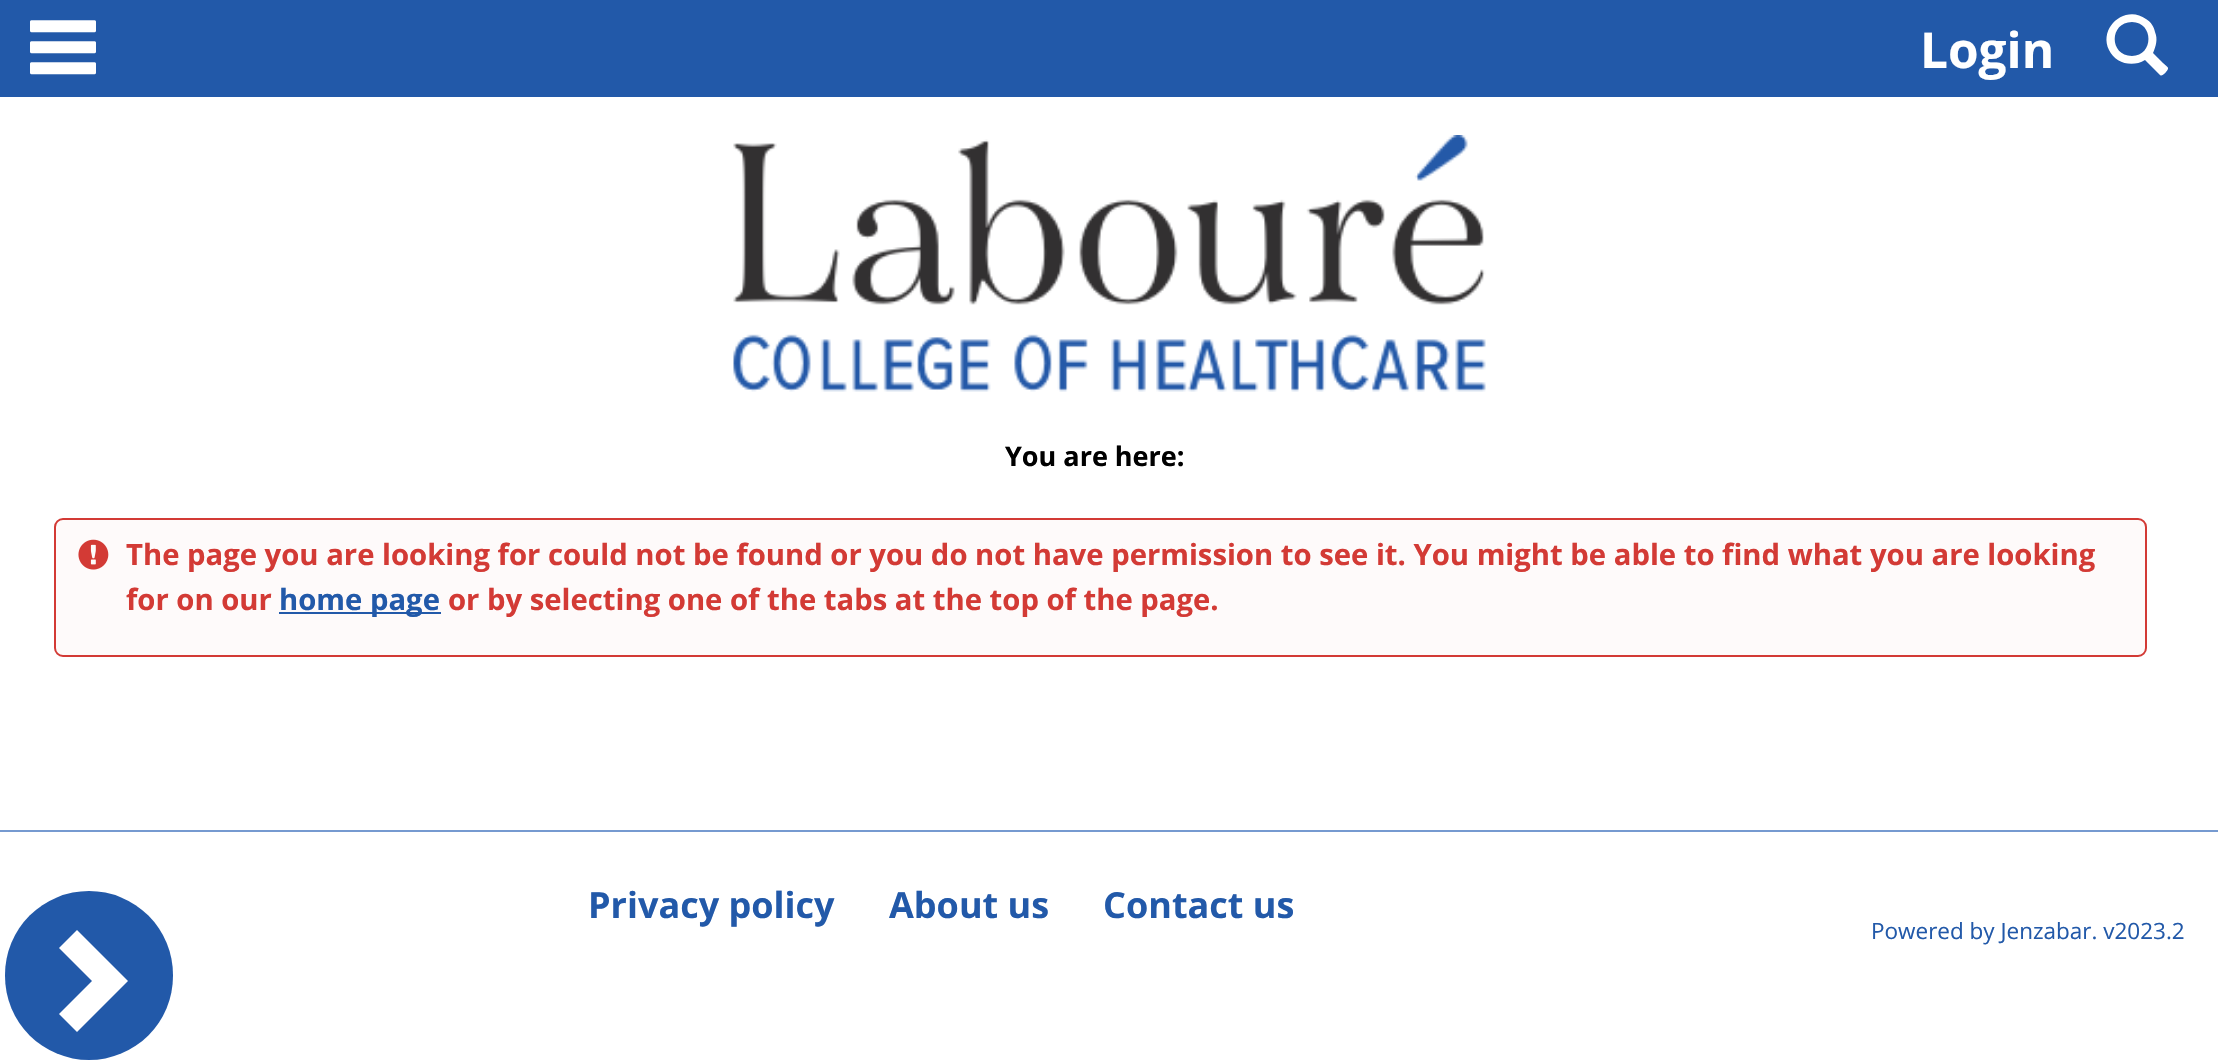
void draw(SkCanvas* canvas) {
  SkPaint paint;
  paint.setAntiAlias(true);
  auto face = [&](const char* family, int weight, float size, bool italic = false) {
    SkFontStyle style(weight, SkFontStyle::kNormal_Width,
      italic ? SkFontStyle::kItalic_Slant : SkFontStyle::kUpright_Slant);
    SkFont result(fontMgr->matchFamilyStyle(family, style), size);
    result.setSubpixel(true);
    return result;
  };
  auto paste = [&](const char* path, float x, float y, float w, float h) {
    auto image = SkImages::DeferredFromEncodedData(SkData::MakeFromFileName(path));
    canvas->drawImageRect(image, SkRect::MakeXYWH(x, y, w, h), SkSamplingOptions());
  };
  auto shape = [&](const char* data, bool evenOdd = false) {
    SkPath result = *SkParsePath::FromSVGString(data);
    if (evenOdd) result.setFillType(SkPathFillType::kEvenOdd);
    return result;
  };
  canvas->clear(0xffffffff);
  paint.setColor(0xff2259a9);
  canvas->drawRect(SkRect::MakeXYWH(0, 0, 2218, 97), paint);
  paste("img/1.png", 30, 20, 66, 55);
  paint.setColor(0xffffffff);
  canvas->drawPath(shape("M2160 75L2145 60C2132 68 2115 63 2109 50C2098 27 2126 4 2146 19C2151 22 2154 27 2155 32C2158 39 2156 46 2153 53L2163 63C2168 68 2170 67 2166 72C2165 73 2162 77 2160 75ZM2132 56C2154 56 2154 22 2132 22C2109 22 2109 56 2132 56Z"), paint);
  paste("img/2.png", 733, 135, 753, 257);
  paint.setColor(0xfffefafa);
  canvas->drawRoundRect(SkRect::MakeXYWH(55, 519, 2091, 137), 8, 8, paint);
  paint.setStroke(true);
  paint.setStrokeWidth(2);
  paint.setColor(0xffd33a35);
  canvas->drawRoundRect(SkRect::MakeXYWH(55, 519, 2091, 137), 8, 8, paint);
  paste("img/3.png", 78, 539, 31, 31);
  paint.setStroke(false);
  paint.setColor(0xff2259a9);
  canvas->drawRect(SkRect::MakeXYWH(279, 612, 162, 2), paint);
  canvas->drawRoundRect(SkRect::MakeXYWH(5, 891, 168, 169), 84, 84, paint);
  paint.setColor(0xffffffff);
  canvas->drawPath(shape("M77 1032L59 1014L92 981L59 948L77 930L128 981Z"), paint);
  paint.setColor(0xff769ad0);
  canvas->drawRect(SkRect::MakeXYWH(0, 830, 2218, 2), paint);
  auto f0 = face("Open Sans", 700, 49.5f);
  paint.setColor(0xffffffff);
  canvas->drawString("Login", 1920, 68, f0, paint);
  auto f1 = face("Open Sans", 700, 27);
  paint.setColor(0xff000000);
  canvas->drawString("You are here:", 1005, 466, f1, paint);
  auto f2 = face("Open Sans", 700, 29.25f);
  paint.setColor(0xffd33a35);
  canvas->drawString("The page you are looking for could not be found or you do not have permission to see it. You might be able to find what you are looking", 126, 565, f2, paint);
  canvas->drawString("for on our", 126, 610, f2, paint);
  paint.setColor(0xff2259a9);
  canvas->drawString("home page", 279, 610, f2, paint);
  paint.setColor(0xffd33a35);
  canvas->drawString("or by selecting one of the tabs at the top of the page.", 448, 610, f2, paint);
  auto f3 = face("Open Sans", 700, 36);
  paint.setColor(0xff2259a9);
  {
    const struct { const char* s; float x, y; } items[] = {
      {"Privacy policy", 588, 918},
      {"About us", 889, 918},
      {"Contact us", 1103, 918},
    };
    for (auto [s, x, y] : items) {
      canvas->drawString(s, x, y, f3, paint);
    }
  }
  auto f4 = face("Open Sans", 400, 22.5f);
  canvas->drawString("Powered by Jenzabar. v2023.2", 1871, 939, f4, paint);
}
